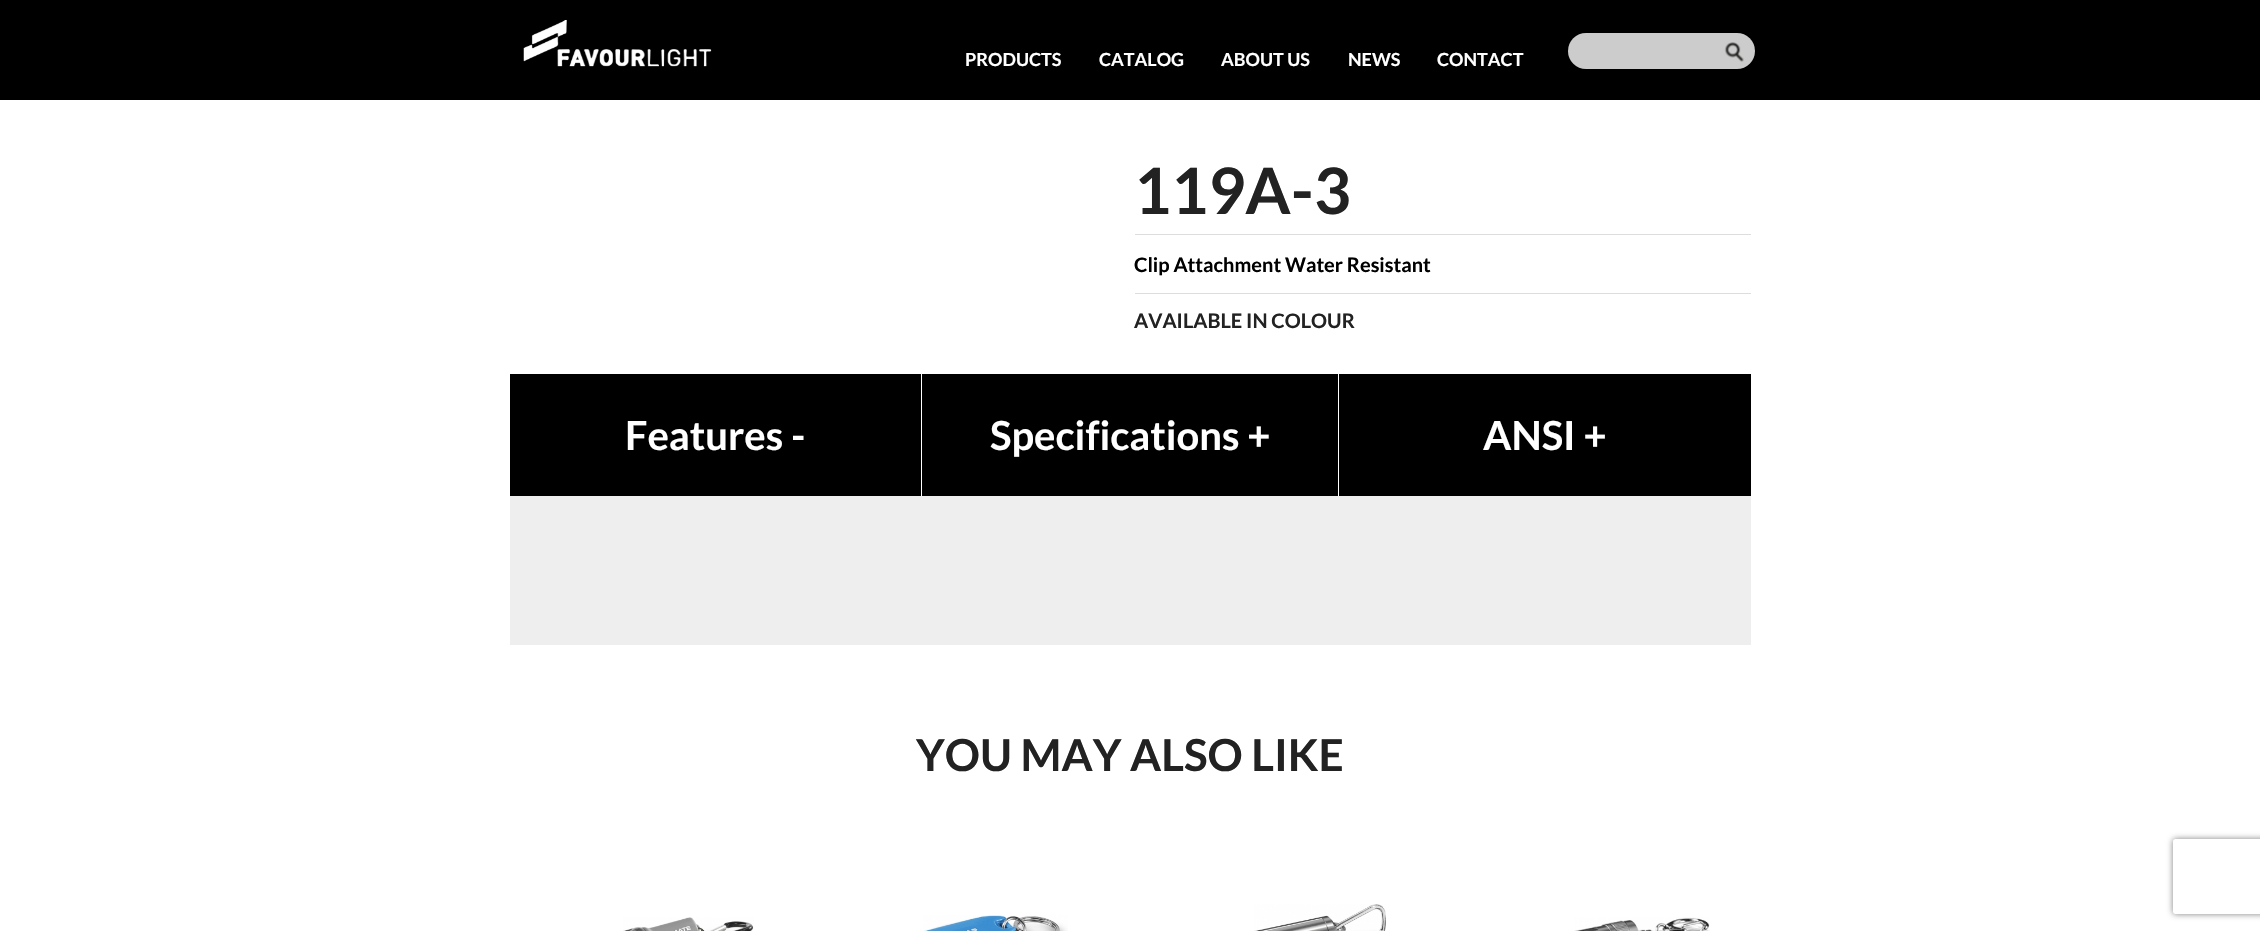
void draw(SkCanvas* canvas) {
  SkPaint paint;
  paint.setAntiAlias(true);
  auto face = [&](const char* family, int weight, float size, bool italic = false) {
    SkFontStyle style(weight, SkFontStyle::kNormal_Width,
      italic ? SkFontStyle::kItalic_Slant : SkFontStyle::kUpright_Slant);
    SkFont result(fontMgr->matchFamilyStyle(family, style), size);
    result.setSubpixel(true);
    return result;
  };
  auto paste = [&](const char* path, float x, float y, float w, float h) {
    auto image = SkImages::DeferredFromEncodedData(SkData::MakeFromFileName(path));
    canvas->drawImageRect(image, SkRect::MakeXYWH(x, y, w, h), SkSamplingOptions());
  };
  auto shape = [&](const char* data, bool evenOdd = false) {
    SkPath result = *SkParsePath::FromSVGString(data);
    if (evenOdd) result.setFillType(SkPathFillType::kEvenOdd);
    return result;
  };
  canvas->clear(0xffffffff);
  paint.setColor(0xff000000);
  canvas->drawRect(SkRect::MakeXYWH(0, 0, 2260, 100), paint);
  paste("img/1.png", 523, 20, 189, 47);
  paint.setColor(0xffcccccc);
  canvas->drawRoundRect(SkRect::MakeXYWH(1568, 33, 187, 36), 18, 18, paint);
  paste("img/2.png", 1724, 42, 20, 20);
  {
    const struct { float x, y, w, h; SkColor color; } items[] = {
      {1135, 234, 616, 1, 0xffdddddd},
      {1135, 293, 616, 1, 0xffdddddd},
      {510, 374, 411, 122, 0xff000000},
      {922, 374, 416, 122, 0xff000000},
      {1339, 374, 412, 122, 0xff000000},
      {510, 496, 1241, 149, 0xffeeeeee},
    };
    for (auto [x, y, w, h, color] : items) {
      paint.setColor(color);
      canvas->drawRect(SkRect::MakeXYWH(x, y, w, h), paint);
    }
  }
  paste("img/3.png", 623, 917, 131, 14);
  paste("img/4.png", 923, 915, 145, 16);
  paste("img/5.png", 1254, 904, 132, 27);
  paste("img/6.png", 1574, 917, 136, 14);
  canvas->save();
  canvas->clipPath(shape("M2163 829H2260V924H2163ZM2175.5 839H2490.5C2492 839 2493 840 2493 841.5V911.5C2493 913 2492 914 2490.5 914H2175.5C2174 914 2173 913 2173 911.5V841.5C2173 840 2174 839 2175.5 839Z", true), true);
  paint.setColor(0xff808080);
  paint.setMaskFilter(SkMaskFilter::MakeBlur(kNormal_SkBlurStyle, 3));
  canvas->drawRoundRect(SkRect::MakeXYWH(2173, 839, 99, 75), 2.5f, 2.5f, paint);
  paint.setMaskFilter(nullptr);
  canvas->restore();
  auto f0 = face("Lato", 700, 18);
  paint.setColor(0xffffffff);
  {
    const struct { const char* s; float x, y; } items[] = {
      {"PRODUCTS", 965, 66},
      {"CATALOG", 1099, 66},
      {"ABOUT US", 1221, 66},
      {"NEWS", 1348, 66},
      {"CONTACT", 1437, 66},
    };
    for (auto [s, x, y] : items) {
      canvas->drawString(s, x, y, f0, paint);
    }
  }
  auto f1 = face("Lato", 700, 64);
  paint.setColor(0xff222222);
  canvas->drawString("119A-3", 1134, 214, f1, paint);
  auto f2 = face("Lato", 700, 20);
  paint.setColor(0xff000000);
  canvas->drawString("Clip Attachment Water Resistant", 1134, 272, f2, paint);
  paint.setColor(0xff222222);
  canvas->drawString("AVAILABLE IN COLOUR", 1134, 328, f2, paint);
  auto f3 = face("Lato", 700, 40);
  paint.setColor(0xffffffff);
  {
    const struct { const char* s; float x, y; } items[] = {
      {"Features -", 625, 450},
      {"Specifications +", 990, 450},
      {"ANSI +", 1483, 450},
    };
    for (auto [s, x, y] : items) {
      canvas->drawString(s, x, y, f3, paint);
    }
  }
  auto f4 = face("Lato", 700, 44);
  paint.setColor(0xff222222);
  canvas->drawString("YOU MAY ALSO LIKE", 916, 771, f4, paint);
}
